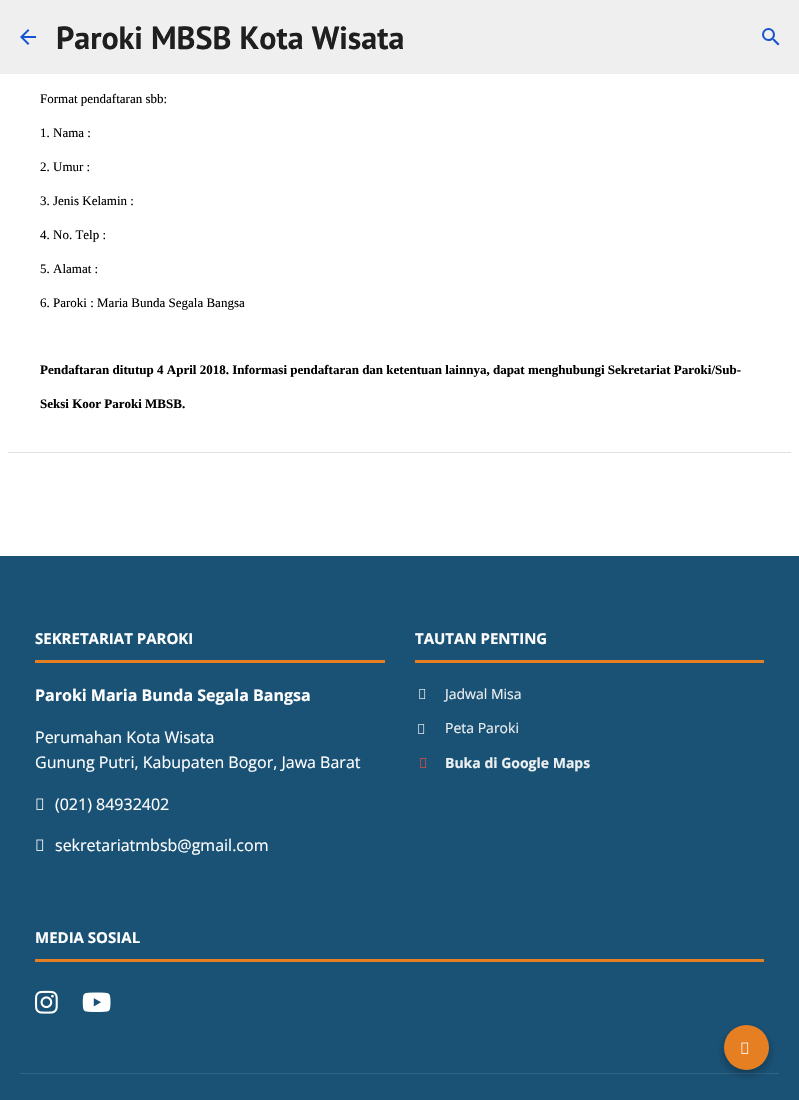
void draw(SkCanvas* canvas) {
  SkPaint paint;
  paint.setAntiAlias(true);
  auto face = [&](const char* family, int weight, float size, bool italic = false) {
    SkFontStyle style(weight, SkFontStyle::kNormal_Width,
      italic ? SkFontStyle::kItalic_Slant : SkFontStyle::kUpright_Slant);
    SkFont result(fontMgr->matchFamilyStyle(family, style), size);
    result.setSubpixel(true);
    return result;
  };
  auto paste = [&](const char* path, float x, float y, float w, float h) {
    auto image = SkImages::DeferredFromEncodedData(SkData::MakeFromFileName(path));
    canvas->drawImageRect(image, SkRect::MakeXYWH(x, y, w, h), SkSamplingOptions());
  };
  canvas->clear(0xffffffff);
  paint.setColor(0xffefefef);
  canvas->drawRect(SkRect::MakeXYWH(0, 0, 799, 74), paint);
  paste("img/1.png", 20, 29, 16, 16);
  paste("img/2.png", 762, 28, 18, 18);
  {
    const struct { float x, y, w, h; SkColor color; } items[] = {
      {8, 452, 783, 1, 0xffe0e0e0},
      {0, 556, 799, 544, 0xff1a5276},
      {35, 660, 350, 3, 0xffe67e22},
    };
    for (auto [x, y, w, h, color] : items) {
      paint.setColor(color);
      canvas->drawRect(SkRect::MakeXYWH(x, y, w, h), paint);
    }
  }
  paste("img/3.png", 36, 798, 8, 12);
  paste("img/3.png", 36, 839, 8, 12);
  canvas->drawRect(SkRect::MakeXYWH(415, 660, 349, 3), paint);
  paste("img/4.png", 419, 689, 7, 10);
  paste("img/4.png", 418, 724, 7, 10);
  paste("img/5.png", 420, 758, 7, 10);
  canvas->drawRect(SkRect::MakeXYWH(35, 959, 729, 3), paint);
  paste("img/6.png", 35, 990, 23, 24);
  paste("img/7.png", 82, 992, 29, 20);
  paint.setColor(0xff316384);
  canvas->drawRect(SkRect::MakeXYWH(20, 1073, 759, 1), paint);
  paint.setColor(0x4d000000);
  paint.setMaskFilter(SkMaskFilter::MakeBlur(kNormal_SkBlurStyle, 5));
  canvas->drawRoundRect(SkRect::MakeXYWH(724, 1029, 45, 45), 22.5f, 22.5f, paint);
  paint.setMaskFilter(nullptr);
  paint.setColor(0xffe67e22);
  canvas->drawCircle(746.5f, 1047.5f, 22.5f, paint);
  paste("img/8.png", 741, 1042, 8, 12);
  auto f0 = face("PT Sans", 700, 32);
  paint.setColor(0xff1f1f1f);
  canvas->drawString("Paroki MBSB Kota Wisata", 56, 49, f0, paint);
  auto f1 = face("Liberation Serif", 400, 13);
  paint.setColor(0xff000000);
  {
    const struct { const char* s; float x, y; } items[] = {
      {"Format pendaftaran sbb:", 40, 103},
      {"1. Nama :", 40, 137},
      {"2. Umur :", 40, 171},
      {"3. Jenis Kelamin :", 40, 205},
      {"4. No. Telp :", 40, 239},
      {"5. Alamat :", 40, 273},
      {"6. Paroki : Maria Bunda Segala Bangsa", 40, 307},
    };
    for (auto [s, x, y] : items) {
      canvas->drawString(s, x, y, f1, paint);
    }
  }
  auto f2 = face("Liberation Serif", 700, 13);
  canvas->drawString("Pendaftaran ditutup 4 April 2018. Informasi pendaftaran dan ketentuan lainnya, dapat menghubungi Sekretariat Paroki/Sub-", 40, 374, f2, paint);
  canvas->drawString("Seksi Koor Paroki MBSB.", 40, 408, f2, paint);
  auto f3 = face("Open Sans", 700, 15);
  paint.setColor(0xffffffff);
  canvas->drawString("SEKRETARIAT PAROKI", 35, 644, f3, paint);
  auto f4 = face("Open Sans", 700, 16);
  canvas->drawString("Paroki Maria Bunda Segala Bangsa", 35, 701, f4, paint);
  auto f5 = face("Open Sans", 400, 16);
  {
    const struct { const char* s; float x, y; } items[] = {
      {"Perumahan Kota Wisata", 35, 743},
      {"Gunung Putri, Kabupaten Bogor, Jawa Barat", 35, 768},
      {"(021) 84932402", 55, 810},
      {"sekretariatmbsb@gmail.com", 55, 851},
    };
    for (auto [s, x, y] : items) {
      canvas->drawString(s, x, y, f5, paint);
    }
  }
  canvas->drawString("TAUTAN PENTING", 415, 644, f3, paint);
  auto f6 = face("Open Sans", 400, 14);
  paint.setColor(0xffecf0f1);
  canvas->drawString("Jadwal Misa", 445, 699, f6, paint);
  canvas->drawString("Peta Paroki", 445, 733, f6, paint);
  auto f7 = face("Open Sans", 700, 14);
  canvas->drawString("Buka di Google Maps", 445, 768, f7, paint);
  paint.setColor(0xffffffff);
  canvas->drawString("MEDIA SOSIAL", 35, 943, f3, paint);
}
